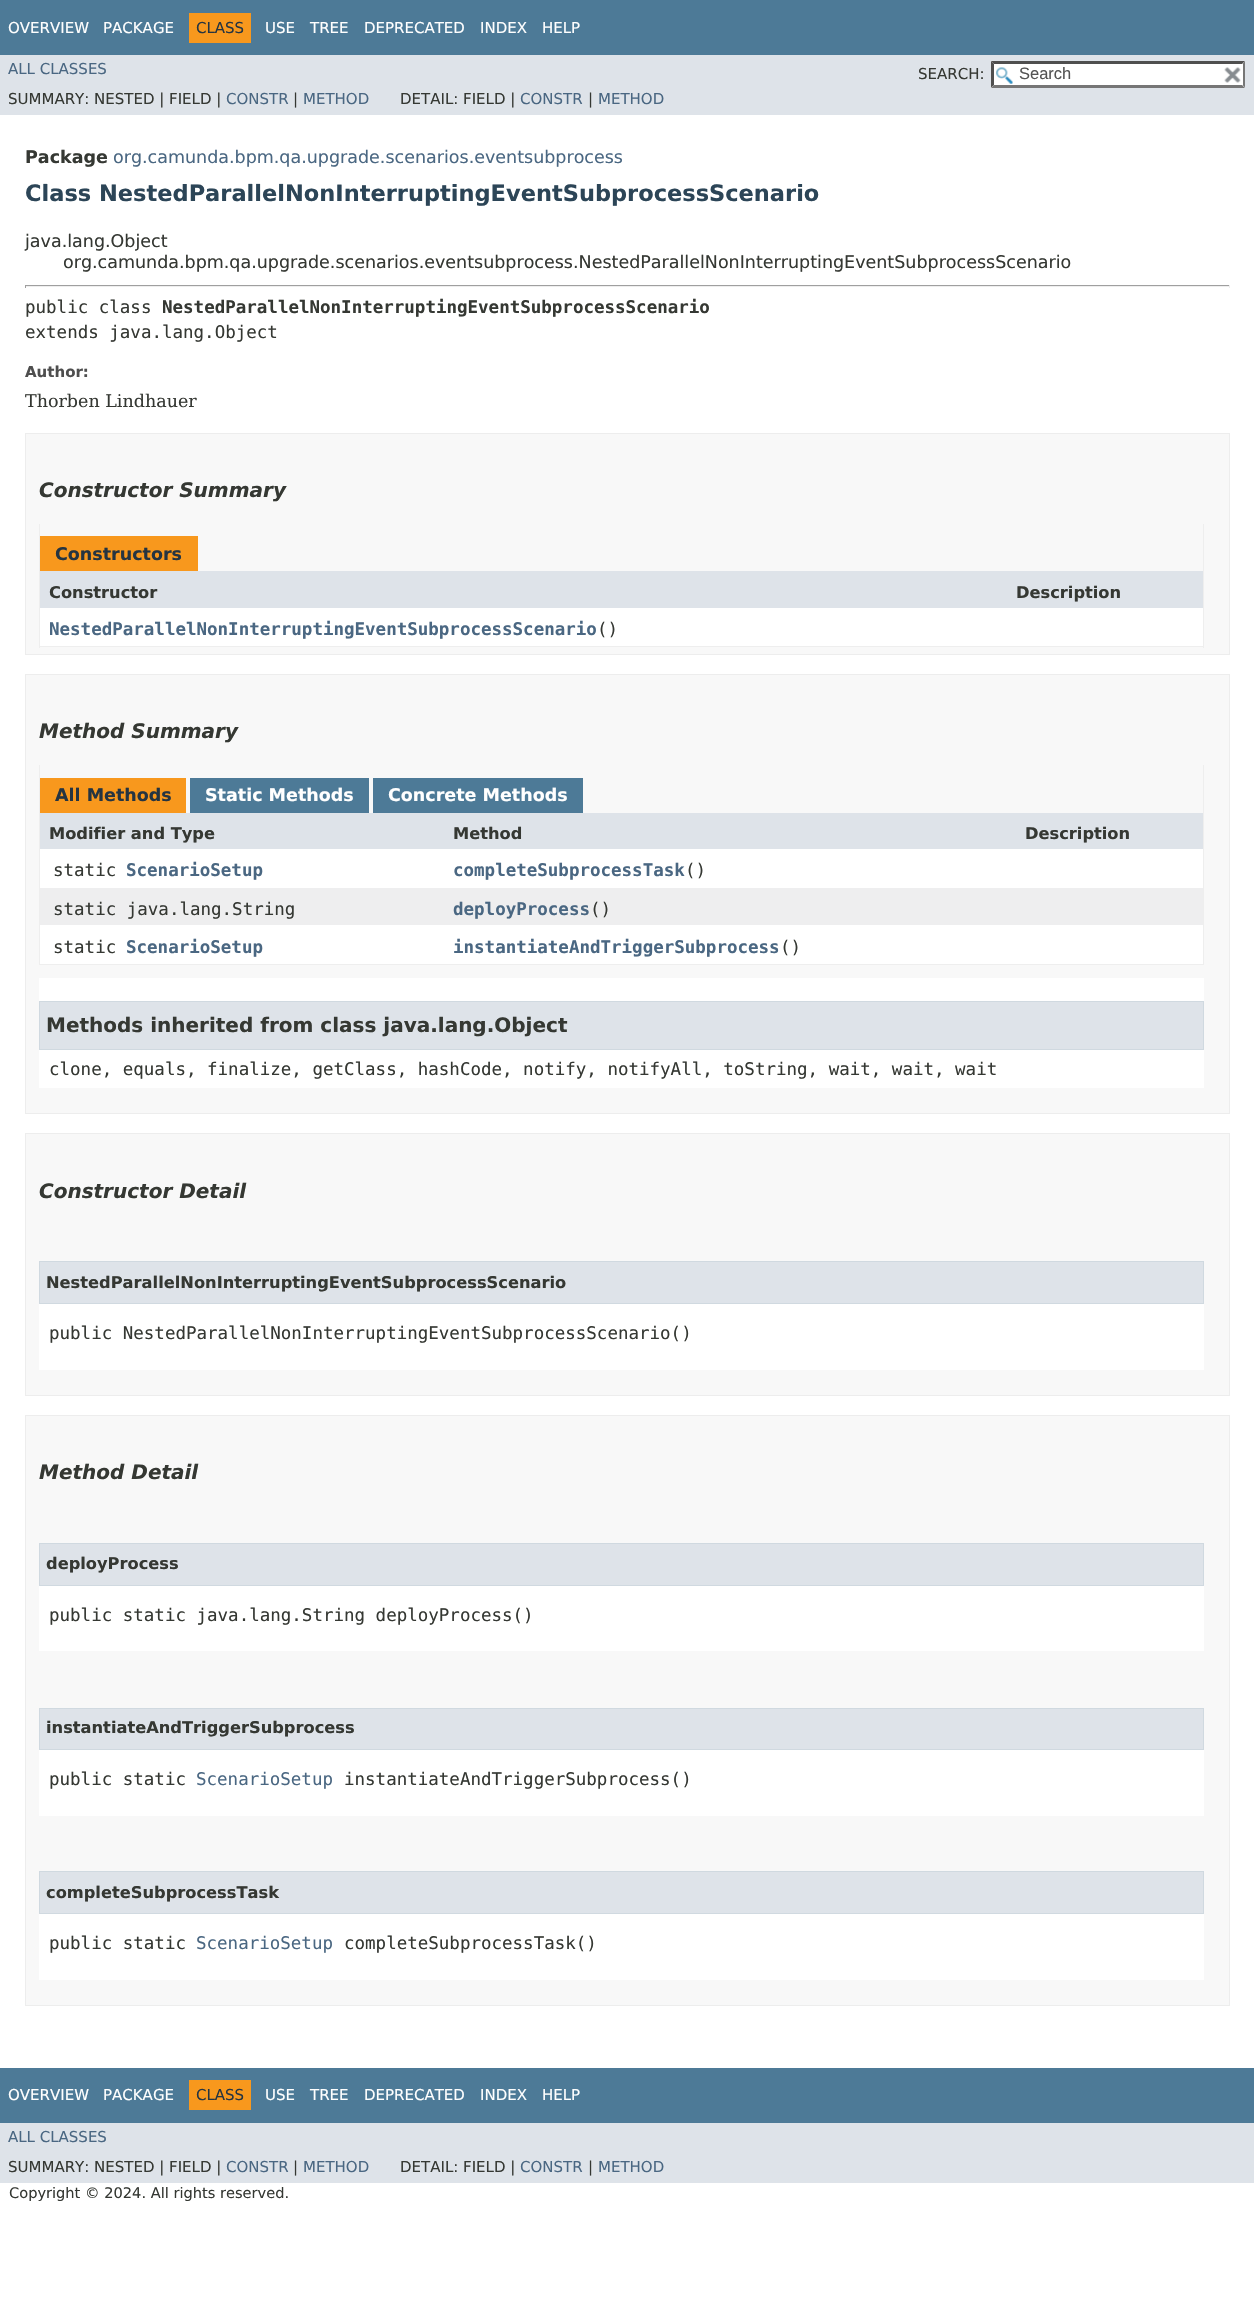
void draw(SkCanvas* canvas) {
  SkPaint paint;
  paint.setAntiAlias(true);
  auto face = [&](const char* family, int weight, float size, bool italic = false) {
    SkFontStyle style(weight, SkFontStyle::kNormal_Width,
      italic ? SkFontStyle::kItalic_Slant : SkFontStyle::kUpright_Slant);
    SkFont result(fontMgr->matchFamilyStyle(family, style), size);
    result.setSubpixel(true);
    return result;
  };
  auto paste = [&](const char* path, float x, float y, float w, float h) {
    auto image = SkImages::DeferredFromEncodedData(SkData::MakeFromFileName(path));
    canvas->drawImageRect(image, SkRect::MakeXYWH(x, y, w, h), SkSamplingOptions());
  };
  auto shape = [&](const char* data, bool evenOdd = false) {
    SkPath result = *SkParsePath::FromSVGString(data);
    if (evenOdd) result.setFillType(SkPathFillType::kEvenOdd);
    return result;
  };
  canvas->clear(0xffffffff);
  {
    const struct { float x, y, w, h; SkColor color; } items[] = {
      {0, 0, 1254, 55, 0xff4d7a97},
      {189, 13, 62, 30, 0xfff8981d},
      {0, 55, 1254, 60, 0xffdee3e9},
      {991, 61, 254, 27, 0xffffffff},
    };
    for (auto [x, y, w, h, color] : items) {
      paint.setColor(color);
      canvas->drawRect(SkRect::MakeXYWH(x, y, w, h), paint);
    }
  }
  paste("img/1.png", 996, 67, 17, 17);
  paint.setColor(0xff4f4f4f);
  canvas->drawPath(shape("M991 61H1245L1242 64H994Z"), paint);
  paint.setColor(0xff767676);
  canvas->drawPath(shape("M1245 61V87.5L1242.5 85V64Z"), paint);
  canvas->drawPath(shape("M1245 88H991L994 85H1242Z"), paint);
  paint.setColor(0xff4f4f4f);
  canvas->drawPath(shape("M991 87.5V61L994 64V85Z"), paint);
  paint.setColor(0xffffffff);
  canvas->drawRect(SkRect::MakeXYWH(1242, 64, 1, 21), paint);
  paste("img/2.png", 1224, 67, 17, 16);
  {
    const struct { float x, y, w, h; SkColor color; } items[] = {
      {25, 285, 1205, 1, 0xff9f9f9f},
      {1229, 285, 1, 3, 0xffeeeeee},
      {25, 286, 1205, 1, 0xffeeeeee},
      {25, 285, 1, 3, 0xff9f9f9f},
    };
    for (auto [x, y, w, h, color] : items) {
      paint.setColor(color);
      canvas->drawRect(SkRect::MakeXYWH(x, y, w, h), paint);
    }
  }
  paint.setColor(0xfff8f8f8);
  canvas->drawRect(SkRect::MakeXYWH(25.5f, 433.5f, 1204, 221), paint);
  paint.setStroke(true);
  paint.setStrokeWidth(1);
  paint.setColor(0xffededed);
  canvas->drawRect(SkRect::MakeXYWH(25.5f, 433.5f, 1204, 221), paint);
  paint.setStroke(false);
  {
    const struct { float x, y, w, h; SkColor color; } items[] = {
      {1203, 524, 1, 124, 0xffeeeeee},
      {39, 646, 1165, 1, 0xffeeeeee},
      {39, 524, 1, 124, 0xffeeeeee},
      {40, 536, 158, 35, 0xfff8981d},
      {40, 571, 1163, 37, 0xffdee3e9},
      {40, 608, 1163, 38, 0xffffffff},
    };
    for (auto [x, y, w, h, color] : items) {
      paint.setColor(color);
      canvas->drawRect(SkRect::MakeXYWH(x, y, w, h), paint);
    }
  }
  paint.setColor(0xfff8f8f8);
  canvas->drawRect(SkRect::MakeXYWH(25.5f, 674.5f, 1204, 439), paint);
  paint.setStroke(true);
  paint.setColor(0xffededed);
  canvas->drawRect(SkRect::MakeXYWH(25.5f, 674.5f, 1204, 439), paint);
  paint.setStroke(false);
  {
    const struct { float x, y, w, h; SkColor color; } items[] = {
      {1203, 765, 1, 200, 0xffeeeeee},
      {39, 964, 1165, 1, 0xffeeeeee},
      {39, 765, 1, 200, 0xffeeeeee},
      {40, 778, 146, 35, 0xfff8981d},
      {190, 778, 179, 35, 0xff4d7a97},
      {373, 778, 210, 35, 0xff4d7a97},
      {40, 813, 1163, 36, 0xffdee3e9},
      {40, 849, 1163, 39, 0xffffffff},
      {40, 888, 1163, 37, 0xffeeeeef},
      {40, 925, 1163, 39, 0xffffffff},
      {39, 978, 1165, 110, 0xffffffff},
    };
    for (auto [x, y, w, h, color] : items) {
      paint.setColor(color);
      canvas->drawRect(SkRect::MakeXYWH(x, y, w, h), paint);
    }
  }
  paint.setColor(0xffdee3e9);
  canvas->drawRect(SkRect::MakeXYWH(39.5f, 1001.5f, 1164, 48), paint);
  paint.setStroke(true);
  paint.setColor(0xffd0d9e0);
  canvas->drawRect(SkRect::MakeXYWH(39.5f, 1001.5f, 1164, 48), paint);
  paint.setStroke(false);
  paint.setColor(0xfff8f8f8);
  canvas->drawRect(SkRect::MakeXYWH(25.5f, 1133.5f, 1204, 262), paint);
  paint.setStroke(true);
  paint.setColor(0xffededed);
  canvas->drawRect(SkRect::MakeXYWH(25.5f, 1133.5f, 1204, 262), paint);
  paint.setStroke(false);
  paint.setColor(0xffffffff);
  canvas->drawRect(SkRect::MakeXYWH(39, 1304, 1165, 66), paint);
  paint.setColor(0xffdee3e9);
  canvas->drawRect(SkRect::MakeXYWH(39.5f, 1261.5f, 1164, 42), paint);
  paint.setStroke(true);
  paint.setColor(0xffd0d9e0);
  canvas->drawRect(SkRect::MakeXYWH(39.5f, 1261.5f, 1164, 42), paint);
  paint.setStroke(false);
  paint.setColor(0xfff8f8f8);
  canvas->drawRect(SkRect::MakeXYWH(25.5f, 1415.5f, 1204, 590), paint);
  paint.setStroke(true);
  paint.setColor(0xffededed);
  canvas->drawRect(SkRect::MakeXYWH(25.5f, 1415.5f, 1204, 590), paint);
  paint.setStroke(false);
  paint.setColor(0xffffffff);
  canvas->drawRect(SkRect::MakeXYWH(39, 1586, 1165, 65), paint);
  paint.setColor(0xffdee3e9);
  canvas->drawRect(SkRect::MakeXYWH(39.5f, 1543.5f, 1164, 42), paint);
  paint.setStroke(true);
  paint.setColor(0xffd0d9e0);
  canvas->drawRect(SkRect::MakeXYWH(39.5f, 1543.5f, 1164, 42), paint);
  paint.setStroke(false);
  paint.setColor(0xffffffff);
  canvas->drawRect(SkRect::MakeXYWH(39, 1750, 1165, 66), paint);
  paint.setColor(0xffdee3e9);
  canvas->drawRect(SkRect::MakeXYWH(39.5f, 1708.5f, 1164, 41), paint);
  paint.setStroke(true);
  paint.setColor(0xffd0d9e0);
  canvas->drawRect(SkRect::MakeXYWH(39.5f, 1708.5f, 1164, 41), paint);
  paint.setStroke(false);
  paint.setColor(0xffffffff);
  canvas->drawRect(SkRect::MakeXYWH(39, 1914, 1165, 66), paint);
  paint.setColor(0xffdee3e9);
  canvas->drawRect(SkRect::MakeXYWH(39.5f, 1871.5f, 1164, 42), paint);
  paint.setStroke(true);
  paint.setColor(0xffd0d9e0);
  canvas->drawRect(SkRect::MakeXYWH(39.5f, 1871.5f, 1164, 42), paint);
  paint.setStroke(false);
  {
    const struct { float x, y, w, h; SkColor color; } items[] = {
      {0, 2068, 1254, 55, 0xff4d7a97},
      {189, 2080, 62, 30, 0xfff8981d},
      {0, 2123, 1254, 60, 0xffdee3e9},
    };
    for (auto [x, y, w, h, color] : items) {
      paint.setColor(color);
      canvas->drawRect(SkRect::MakeXYWH(x, y, w, h), paint);
    }
  }
  auto f0 = face("DejaVu Sans", 400, 15);
  paint.setColor(0xffffffff);
  canvas->drawString("OVERVIEW", 8, 33, f0, paint);
  canvas->drawString("PACKAGE", 103, 33, f0, paint);
  paint.setColor(0xff253441);
  canvas->drawString("CLASS", 196, 33, f0, paint);
  paint.setColor(0xffffffff);
  {
    const struct { const char* s; float x, y; } items[] = {
      {"USE", 265, 33},
      {"TREE", 310, 33},
      {"DEPRECATED", 364, 33},
      {"INDEX", 480, 33},
      {"HELP", 542, 33},
    };
    for (auto [s, x, y] : items) {
      canvas->drawString(s, x, y, f0, paint);
    }
  }
  paint.setColor(0xff4a6782);
  canvas->drawString("ALL CLASSES", 8, 74, f0, paint);
  paint.setColor(0xff353833);
  canvas->drawString("SEARCH:", 918, 79, f0, paint);
  auto f1 = face("Liberation Sans", 400, 16.5f);
  paint.setColor(0xff545454);
  canvas->drawString("Search", 1019, 79, f1, paint);
  paint.setColor(0xff353833);
  canvas->drawString("SUMMARY: NESTED | FIELD |", 8, 104, f0, paint);
  paint.setColor(0xff4a6782);
  canvas->drawString("CONSTR", 226, 104, f0, paint);
  paint.setColor(0xff353833);
  canvas->drawString("|", 293, 104, f0, paint);
  paint.setColor(0xff4a6782);
  canvas->drawString("METHOD", 303, 104, f0, paint);
  paint.setColor(0xff353833);
  canvas->drawString("DETAIL: FIELD |", 400, 104, f0, paint);
  paint.setColor(0xff4a6782);
  canvas->drawString("CONSTR", 520, 104, f0, paint);
  paint.setColor(0xff353833);
  canvas->drawString("|", 588, 104, f0, paint);
  paint.setColor(0xff4a6782);
  canvas->drawString("METHOD", 598, 104, f0, paint);
  auto f2 = face("DejaVu Sans", 700, 17.5f);
  paint.setColor(0xff353833);
  canvas->drawString("Package", 25, 163, f2, paint);
  auto f3 = face("DejaVu Sans", 400, 17.5f);
  paint.setColor(0xff4a6782);
  canvas->drawString("org.camunda.bpm.qa.upgrade.scenarios.eventsubprocess", 113, 163, f3, paint);
  auto f4 = face("DejaVu Sans", 700, 22.5f);
  paint.setColor(0xff2c4557);
  canvas->drawString("Class NestedParallelNonInterruptingEventSubprocessScenario", 25, 201, f4, paint);
  paint.setColor(0xff353833);
  canvas->drawString("java.lang.Object", 25, 247, f3, paint);
  canvas->drawString("org.camunda.bpm.qa.upgrade.scenarios.eventsubprocess.NestedParallelNonInterruptingEventSubprocessScenario", 63, 268, f3, paint);
  auto f5 = face("DejaVu Sans Mono", 400, 17.5f);
  canvas->drawString("public class", 25, 313, f5, paint);
  auto f6 = face("DejaVu Sans Mono", 700, 17.5f);
  canvas->drawString("NestedParallelNonInterruptingEventSubprocessScenario", 162, 313, f6, paint);
  canvas->drawString("extends java.lang.Object", 25, 338, f5, paint);
  auto f7 = face("DejaVu Sans", 700, 15);
  paint.setColor(0xff4e4e4e);
  canvas->drawString("Author:", 25, 377, f7, paint);
  auto f8 = face("DejaVu Serif", 400, 17.5f);
  paint.setColor(0xff353833);
  canvas->drawString("Thorben Lindhauer", 25, 407, f8, paint);
  auto f9 = face("DejaVu Sans", 700, 20, true);
  canvas->drawString("Constructor Summary", 39, 497, f9, paint);
  paint.setColor(0xff253441);
  canvas->drawString("Constructors", 55, 560, f2, paint);
  auto f10 = face("DejaVu Sans", 700, 16.25f);
  paint.setColor(0xff353833);
  canvas->drawString("Constructor", 49, 598, f10, paint);
  canvas->drawString("Description", 1016, 598, f10, paint);
  paint.setColor(0xff4a6782);
  canvas->drawString("NestedParallelNonInterruptingEventSubprocessScenario", 49, 635, f6, paint);
  paint.setColor(0xff353833);
  canvas->drawString("()", 597, 635, f5, paint);
  canvas->drawString("Method Summary", 39, 738, f9, paint);
  paint.setColor(0xff253441);
  canvas->drawString("All Methods", 55, 801, f2, paint);
  paint.setColor(0xffffffff);
  canvas->drawString("Static Methods", 205, 801, f2, paint);
  canvas->drawString("Concrete Methods", 388, 801, f2, paint);
  paint.setColor(0xff353833);
  {
    const struct { const char* s; float x, y; } items[] = {
      {"Modifier and Type", 49, 839},
      {"Method", 453, 839},
      {"Description", 1025, 839},
    };
    for (auto [s, x, y] : items) {
      canvas->drawString(s, x, y, f10, paint);
    }
  }
  canvas->drawString("static", 53, 876, f5, paint);
  paint.setColor(0xff4a6782);
  canvas->drawString("ScenarioSetup", 126, 876, f6, paint);
  canvas->drawString("completeSubprocessTask", 453, 876, f6, paint);
  paint.setColor(0xff353833);
  canvas->drawString("()", 685, 876, f5, paint);
  canvas->drawString("static java.lang.String", 53, 915, f5, paint);
  paint.setColor(0xff4a6782);
  canvas->drawString("deployProcess", 453, 915, f6, paint);
  paint.setColor(0xff353833);
  canvas->drawString("()", 590, 915, f5, paint);
  canvas->drawString("static", 53, 953, f5, paint);
  paint.setColor(0xff4a6782);
  canvas->drawString("ScenarioSetup", 126, 953, f6, paint);
  canvas->drawString("instantiateAndTriggerSubprocess", 453, 953, f6, paint);
  paint.setColor(0xff353833);
  canvas->drawString("()", 780, 953, f5, paint);
  auto f11 = face("DejaVu Sans", 700, 20);
  canvas->drawString("Methods inherited from class java.lang.Object", 46, 1032, f11, paint);
  canvas->drawString("clone, equals, finalize, getClass, hashCode, notify, notifyAll, toString, wait, wait, wait", 49, 1075, f5, paint);
  canvas->drawString("Constructor Detail", 39, 1198, f9, paint);
  canvas->drawString("NestedParallelNonInterruptingEventSubprocessScenario", 46, 1288, f10, paint);
  canvas->drawString("public NestedParallelNonInterruptingEventSubprocessScenario()", 49, 1339, f5, paint);
  canvas->drawString("Method Detail", 39, 1479, f9, paint);
  canvas->drawString("deployProcess", 46, 1569, f10, paint);
  canvas->drawString("public static java.lang.String deployProcess()", 49, 1621, f5, paint);
  canvas->drawString("instantiateAndTriggerSubprocess", 46, 1733, f10, paint);
  canvas->drawString("public static", 49, 1785, f5, paint);
  paint.setColor(0xff4a6782);
  canvas->drawString("ScenarioSetup", 196, 1785, f5, paint);
  paint.setColor(0xff353833);
  canvas->drawString("instantiateAndTriggerSubprocess()", 344, 1785, f5, paint);
  canvas->drawString("completeSubprocessTask", 46, 1898, f10, paint);
  canvas->drawString("public static", 49, 1949, f5, paint);
  paint.setColor(0xff4a6782);
  canvas->drawString("ScenarioSetup", 196, 1949, f5, paint);
  paint.setColor(0xff353833);
  canvas->drawString("completeSubprocessTask()", 344, 1949, f5, paint);
  paint.setColor(0xffffffff);
  canvas->drawString("OVERVIEW", 8, 2100, f0, paint);
  canvas->drawString("PACKAGE", 103, 2100, f0, paint);
  paint.setColor(0xff253441);
  canvas->drawString("CLASS", 196, 2100, f0, paint);
  paint.setColor(0xffffffff);
  {
    const struct { const char* s; float x, y; } items[] = {
      {"USE", 265, 2100},
      {"TREE", 310, 2100},
      {"DEPRECATED", 364, 2100},
      {"INDEX", 480, 2100},
      {"HELP", 542, 2100},
    };
    for (auto [s, x, y] : items) {
      canvas->drawString(s, x, y, f0, paint);
    }
  }
  paint.setColor(0xff4a6782);
  canvas->drawString("ALL CLASSES", 8, 2142, f0, paint);
  paint.setColor(0xff353833);
  canvas->drawString("SUMMARY: NESTED | FIELD |", 8, 2172, f0, paint);
  paint.setColor(0xff4a6782);
  canvas->drawString("CONSTR", 226, 2172, f0, paint);
  paint.setColor(0xff353833);
  canvas->drawString("|", 293, 2172, f0, paint);
  paint.setColor(0xff4a6782);
  canvas->drawString("METHOD", 303, 2172, f0, paint);
  paint.setColor(0xff353833);
  canvas->drawString("DETAIL: FIELD |", 400, 2172, f0, paint);
  paint.setColor(0xff4a6782);
  canvas->drawString("CONSTR", 520, 2172, f0, paint);
  paint.setColor(0xff353833);
  canvas->drawString("|", 588, 2172, f0, paint);
  paint.setColor(0xff4a6782);
  canvas->drawString("METHOD", 598, 2172, f0, paint);
  auto f12 = face("DejaVu Sans", 400, 14.6f);
  paint.setColor(0xff353833);
  canvas->drawString("Copyright © 2024. All rights reserved.", 9, 2198, f12, paint);
}
